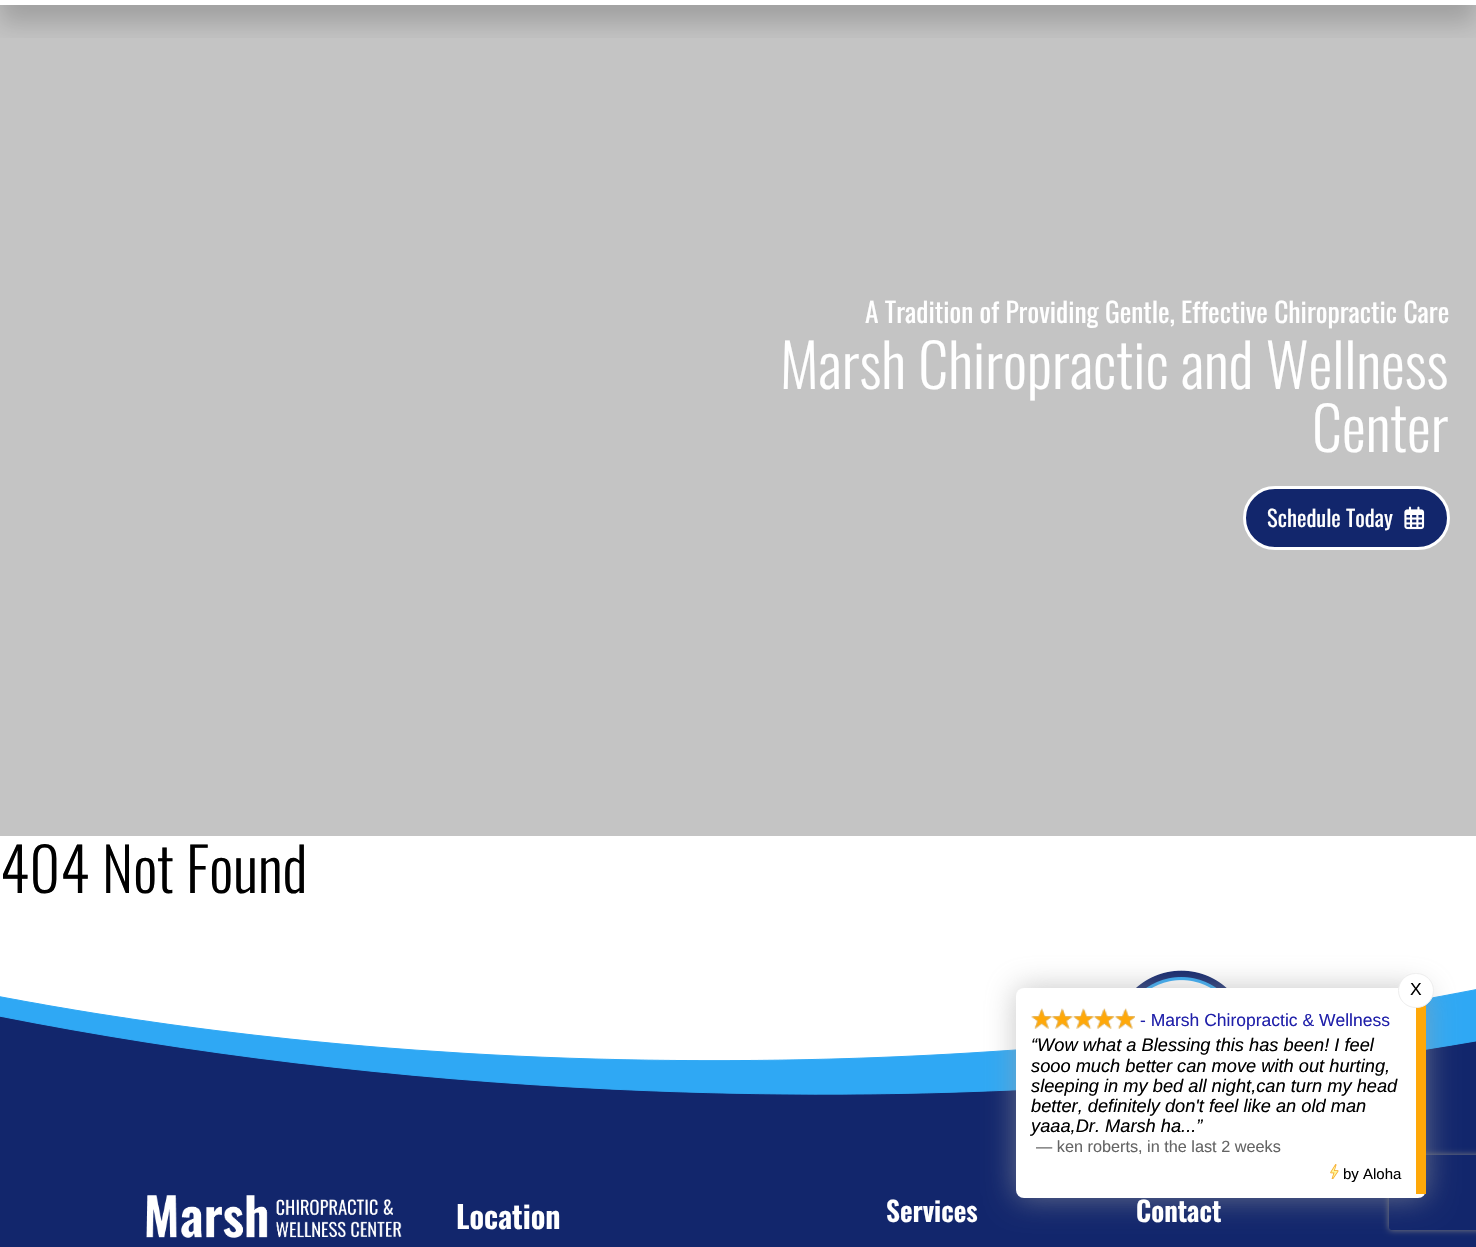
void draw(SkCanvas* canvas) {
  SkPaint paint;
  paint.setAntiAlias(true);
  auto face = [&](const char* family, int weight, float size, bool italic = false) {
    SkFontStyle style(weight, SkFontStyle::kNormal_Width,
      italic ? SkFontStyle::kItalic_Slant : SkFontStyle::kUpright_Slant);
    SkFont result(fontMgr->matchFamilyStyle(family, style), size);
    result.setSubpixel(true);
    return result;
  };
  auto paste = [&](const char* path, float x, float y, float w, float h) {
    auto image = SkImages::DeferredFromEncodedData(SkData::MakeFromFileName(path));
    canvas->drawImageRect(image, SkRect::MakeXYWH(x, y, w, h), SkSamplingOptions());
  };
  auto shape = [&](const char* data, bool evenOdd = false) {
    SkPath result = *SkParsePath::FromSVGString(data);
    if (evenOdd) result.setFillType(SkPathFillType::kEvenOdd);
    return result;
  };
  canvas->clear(0xffffffff);
  paint.setColor(0xffc4c4c4);
  canvas->drawRect(SkRect::MakeXYWH(0, 5, 1476, 831), paint);
  canvas->save();
  canvas->clipRect(SkRect::MakeXYWH(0, 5, 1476, 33));
  paint.setColor(0x2e000000);
  paint.setMaskFilter(SkMaskFilter::MakeBlur(kNormal_SkBlurStyle, 12.5f));
  canvas->drawRect(SkRect::MakeXYWH(0, -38, 1476, 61), paint);
  paint.setMaskFilter(nullptr);
  canvas->restore();
  paint.setColor(0xff12266c);
  canvas->drawRoundRect(SkRect::MakeXYWH(1244.5f, 487.5f, 204, 61), 30.5f, 30.5f, paint);
  paint.setStroke(true);
  paint.setStrokeWidth(3);
  paint.setColor(0xffffffff);
  canvas->drawRoundRect(SkRect::MakeXYWH(1244.5f, 487.5f, 204, 61), 30.5f, 30.5f, paint);
  paste("img/1.png", 1404, 506, 21, 24);
  paste("img/2.png", 1128, 970, 107, 18);
  paste("img/3.png", 0, 989, 1476, 124);
  paint.setStroke(false);
  paint.setColor(0xff12266c);
  canvas->drawRect(SkRect::MakeXYWH(0, 1113, 1476, 134), paint);
  paste("img/4.png", 146, 1195, 256, 43);
  paint.setColor(0x99a0a0a0);
  paint.setMaskFilter(SkMaskFilter::MakeBlur(kNormal_SkBlurStyle, 15));
  canvas->drawRoundRect(SkRect::MakeXYWH(1016, 988, 410, 210), 8, 8, paint);
  paint.setMaskFilter(nullptr);
  canvas->save();
  canvas->clipPath(shape("M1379 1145H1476V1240H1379ZM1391.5 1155H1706.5C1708 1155 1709 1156 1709 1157.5V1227.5C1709 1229 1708 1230 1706.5 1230H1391.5C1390 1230 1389 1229 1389 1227.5V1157.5C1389 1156 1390 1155 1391.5 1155Z", true), true);
  paint.setColor(0xff808080);
  paint.setMaskFilter(SkMaskFilter::MakeBlur(kNormal_SkBlurStyle, 3));
  canvas->drawRoundRect(SkRect::MakeXYWH(1389, 1155, 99, 75), 2.5f, 2.5f, paint);
  paint.setMaskFilter(nullptr);
  canvas->restore();
  paint.setColor(0xffffffff);
  canvas->drawRoundRect(SkRect::MakeXYWH(1016, 988, 410, 210), 8, 8, paint);
  paint.setColor(0xffffa808);
  canvas->drawRect(SkRect::MakeXYWH(1416, 1005, 10, 189), paint);
  paint.setColor(0xffffffff);
  canvas->drawRoundRect(SkRect::MakeXYWH(1398.5f, 973.5f, 35, 34), 17, 17, paint);
  paint.setStroke(true);
  paint.setStrokeWidth(1);
  paint.setColor(0xffeeeeee);
  canvas->drawRoundRect(SkRect::MakeXYWH(1398.5f, 973.5f, 35, 34), 17, 17, paint);
  paste("img/5.png", 1031, 1008, 104, 21);
  paste("img/6.png", 1031, 1008, 104, 21);
  paste("img/7.png", 1330, 1164, 9, 15);
  auto f0 = face("Oswald", 400, 27.5f);
  paint.setStroke(false);
  paint.setColor(0xffffffff);
  canvas->drawString("A Tradition of Providing Gentle, Effective Chiropractic Care", 865, 323, f0, paint);
  auto f1 = face("Oswald", 300, 60);
  canvas->drawString("Marsh Chiropractic and Wellness", 780, 389, f1, paint);
  canvas->drawString("Center", 1312, 452, f1, paint);
  auto f2 = face("Oswald", 400, 22.5f);
  canvas->drawString("Schedule Today", 1267, 527, f2, paint);
  paint.setColor(0xff000000);
  canvas->drawString("404 Not Found", 0, 893, f1, paint);
  auto f3 = face("Oswald", 600, 31);
  paint.setColor(0xffffffff);
  canvas->drawString("Location", 456, 1229, f3, paint);
  auto f4 = face("Oswald", 600, 27.5f);
  canvas->drawString("Services", 886, 1222, f4, paint);
  canvas->drawString("Contact", 1136, 1222, f4, paint);
  auto f5 = face("Liberation Sans", 400, 17.5f);
  paint.setColor(0xff000000);
  canvas->drawString("X", 1410, 995, f5, paint);
  paint.setColor(0xff2020aa);
  canvas->drawString("- Marsh Chiropractic & Wellness", 1140, 1026, f5, paint);
  auto f6 = face("Liberation Sans", 400, 18.25f, true);
  paint.setColor(0xff000000);
  {
    const struct { const char* s; float x, y; } items[] = {
      {"“Wow what a Blessing this has been! I feel", 1031, 1051},
      {"sooo much better can move with out hurting,", 1031, 1072},
      {"sleeping in my bed all night,can turn my head", 1031, 1092},
      {"better, definitely don't feel like an old man", 1031, 1112},
      {"yaaa,Dr. Marsh ha...”", 1031, 1132},
    };
    for (auto [s, x, y] : items) {
      canvas->drawString(s, x, y, f6, paint);
    }
  }
  auto f7 = face("Liberation Sans", 400, 16.25f);
  paint.setColor(0xff646464);
  canvas->drawString("— ken roberts, in the last 2 weeks", 1036, 1152, f7, paint);
  auto f8 = face("Liberation Sans", 400, 15);
  paint.setColor(0xff000000);
  canvas->drawString("by Aloha", 1343, 1179, f8, paint);
}
